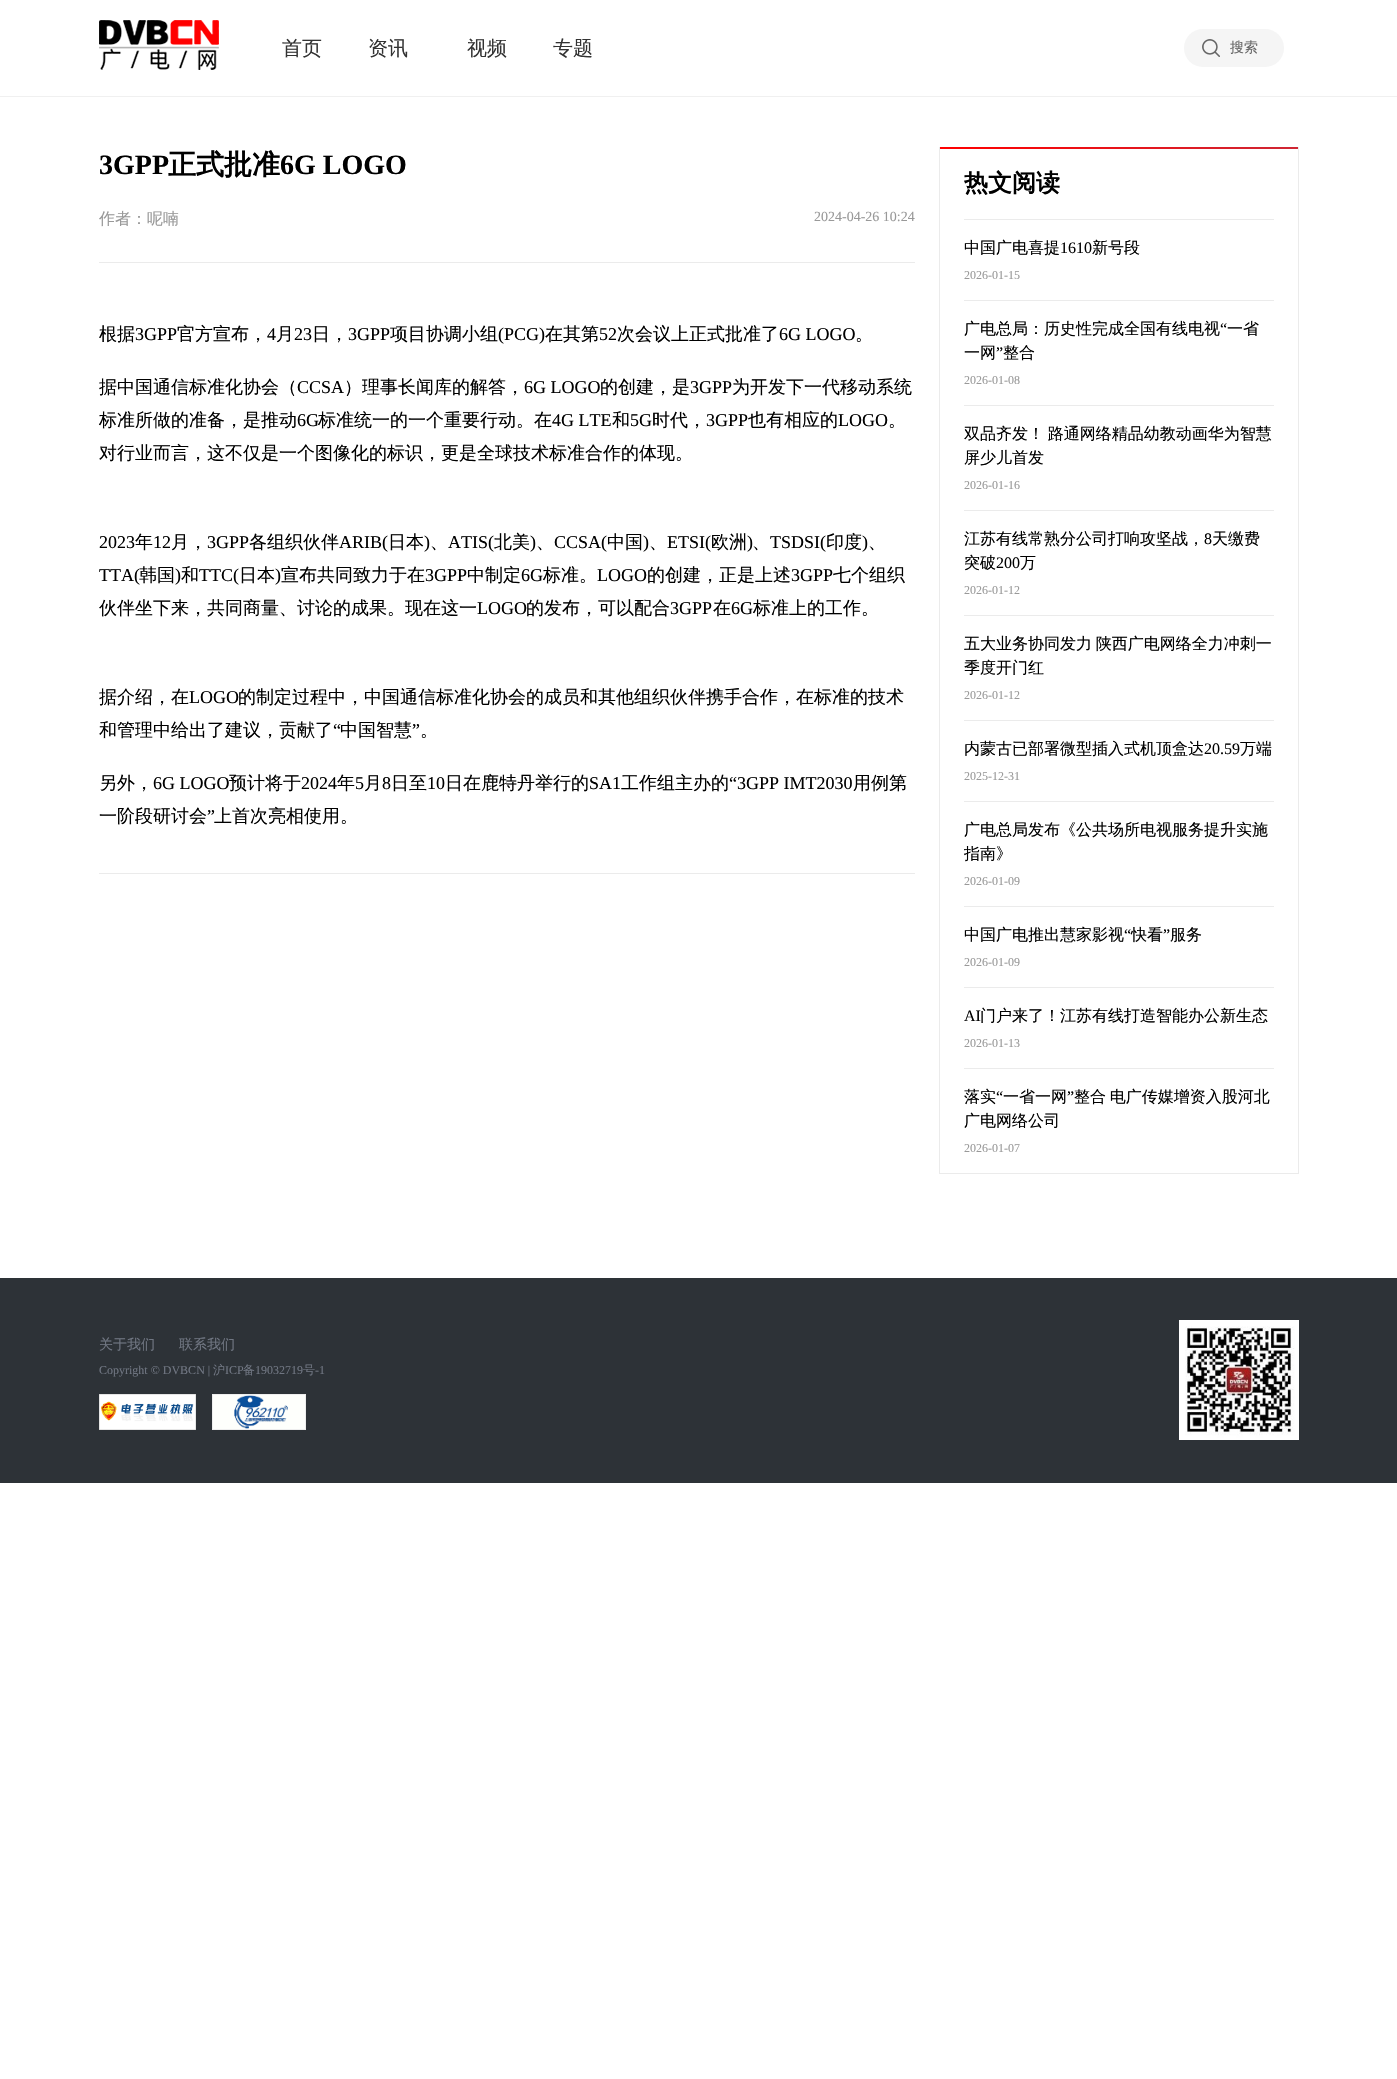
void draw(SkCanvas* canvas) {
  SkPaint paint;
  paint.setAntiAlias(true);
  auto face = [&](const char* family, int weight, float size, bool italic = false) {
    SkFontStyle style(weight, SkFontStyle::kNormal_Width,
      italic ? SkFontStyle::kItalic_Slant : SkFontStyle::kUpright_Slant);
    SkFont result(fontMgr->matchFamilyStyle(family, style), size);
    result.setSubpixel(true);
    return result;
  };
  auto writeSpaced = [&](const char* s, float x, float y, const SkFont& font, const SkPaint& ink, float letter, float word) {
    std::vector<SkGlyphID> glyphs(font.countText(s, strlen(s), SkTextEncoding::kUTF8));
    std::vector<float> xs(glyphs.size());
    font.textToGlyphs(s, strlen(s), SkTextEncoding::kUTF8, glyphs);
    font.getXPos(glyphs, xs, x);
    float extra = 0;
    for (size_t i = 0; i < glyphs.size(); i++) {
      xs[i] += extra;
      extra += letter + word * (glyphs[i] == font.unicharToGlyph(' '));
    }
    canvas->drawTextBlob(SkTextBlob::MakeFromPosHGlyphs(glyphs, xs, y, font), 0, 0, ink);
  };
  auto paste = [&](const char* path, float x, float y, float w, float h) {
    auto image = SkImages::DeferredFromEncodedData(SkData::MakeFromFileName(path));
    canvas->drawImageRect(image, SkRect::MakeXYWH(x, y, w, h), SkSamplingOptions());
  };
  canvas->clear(0xffffffff);
  paint.setColor(0xfff0f0f0);
  canvas->drawRect(SkRect::MakeXYWH(0, 96, 1397, 1), paint);
  paste("img/1.png", 99, 20, 120, 50);
  paint.setColor(0xfff5f5f5);
  canvas->drawRoundRect(SkRect::MakeXYWH(1184, 29, 100, 38), 19, 19, paint);
  paste("img/2.png", 1202, 39, 18, 18);
  {
    const struct { float x, y, w, h; SkColor color; } items[] = {
      {99, 262, 816, 1, 0xffebebeb},
      {99, 873, 816, 1, 0xffebebeb},
      {1298, 147, 1, 1027, 0xffebebeb},
      {939, 1173, 360, 1, 0xffebebeb},
      {939, 147, 1, 1027, 0xffebebeb},
    };
    for (auto [x, y, w, h, color] : items) {
      paint.setColor(color);
      canvas->drawRect(SkRect::MakeXYWH(x, y, w, h), paint);
    }
  }
  {
    const SkColor colors[] = {0xffff0000, 0xffcf2734};
    const float stops[] = {0, 1};
    const SkPoint ends[] = {{940, 148}, {1298, 148}};
    paint.setShader(SkGradientShader::MakeLinear(ends, colors, stops, 2, SkTileMode::kClamp));
    paint.setAlpha(255);
  }
  canvas->drawRect(SkRect::MakeXYWH(940, 147, 358, 2), paint);
  paint.setShader(nullptr);
  {
    const struct { float x, y, w, h; SkColor color; } items[] = {
      {964, 219, 310, 1, 0xffebebeb},
      {964, 300, 310, 1, 0xffebebeb},
      {964, 405, 310, 1, 0xffebebeb},
      {964, 510, 310, 1, 0xffebebeb},
      {964, 615, 310, 1, 0xffebebeb},
      {964, 720, 310, 1, 0xffebebeb},
      {964, 801, 310, 1, 0xffebebeb},
      {964, 906, 310, 1, 0xffebebeb},
      {964, 987, 310, 1, 0xffebebeb},
      {964, 1068, 310, 1, 0xffebebeb},
      {0, 1278, 1397, 205, 0xff2d3237},
    };
    for (auto [x, y, w, h, color] : items) {
      paint.setColor(color);
      canvas->drawRect(SkRect::MakeXYWH(x, y, w, h), paint);
    }
  }
  paste("img/3.png", 99, 1394, 97, 36);
  paint.setStroke(true);
  paint.setStrokeWidth(1);
  paint.setColor(0xffeeeeee);
  canvas->drawRect(SkRect::MakeXYWH(212.5f, 1394.5f, 93, 35), paint);
  paste("img/4.png", 213, 1395, 92, 34);
  paste("img/5.png", 1179, 1320, 120, 120);
  auto f0 = face("WenQuanYi Zen Hei", 500, 20);
  paint.setStroke(false);
  paint.setColor(0xff333333);
  {
    const struct { const char* s; float x, y; } items[] = {
      {"首页", 282, 55},
      {"资讯", 368, 55},
      {"视频", 467, 55},
      {"专题", 553, 55},
    };
    for (auto [s, x, y] : items) {
      canvas->drawString(s, x, y, f0, paint);
    }
  }
  auto f1 = face("WenQuanYi Zen Hei", 500, 14);
  paint.setColor(0xff666666);
  canvas->drawString("搜索", 1230, 52, f1, paint);
  auto f2 = face("Liberation Serif", 700, 28);
  paint.setColor(0xff000000);
  canvas->drawString("3GPP", 99, 174, f2, paint);
  auto f3 = face("WenQuanYi Zen Hei", 700, 28);
  canvas->drawString("正式批准", 168, 174, f3, paint);
  canvas->drawString("6G LOGO", 280, 174, f2, paint);
  auto f4 = face("WenQuanYi Zen Hei", 500, 16);
  paint.setColor(0xff999999);
  canvas->drawString("作者：呢喃", 99, 224, f4, paint);
  auto f5 = face("Liberation Serif", 400, 14);
  canvas->drawString("2024-04-26 10:24", 814, 221, f5, paint);
  auto f6 = face("WenQuanYi Zen Hei", 500, 18);
  paint.setColor(0xff000000);
  canvas->drawString("根据", 99, 340, f6, paint);
  auto f7 = face("Liberation Serif", 400, 18);
  canvas->drawString("3GPP", 135, 340, f7, paint);
  canvas->drawString("官方宣布，", 177, 340, f6, paint);
  canvas->drawString("4", 267, 340, f7, paint);
  canvas->drawString("月", 276, 340, f6, paint);
  canvas->drawString("23", 294, 340, f7, paint);
  canvas->drawString("日，", 312, 340, f6, paint);
  canvas->drawString("3GPP", 348, 340, f7, paint);
  canvas->drawString("项目协调小组", 390, 340, f6, paint);
  canvas->drawString("(PCG)", 498, 340, f7, paint);
  canvas->drawString("在其第", 545, 340, f6, paint);
  canvas->drawString("52", 599, 340, f7, paint);
  canvas->drawString("次会议上正式批准了", 617, 340, f6, paint);
  canvas->drawString("6G LOGO", 779, 340, f7, paint);
  canvas->drawString("。", 855, 340, f6, paint);
  canvas->drawString("据中国通信标准化协会（", 99, 393, f6, paint);
  canvas->drawString("CCSA", 297, 393, f7, paint);
  canvas->drawString("）理事长闻库的解答，", 344, 393, f6, paint);
  canvas->drawString("6G LOGO", 524, 393, f7, paint);
  canvas->drawString("的创建，是", 600, 393, f6, paint);
  canvas->drawString("3GPP", 690, 393, f7, paint);
  canvas->drawString("为开发下一代移动系统", 732, 393, f6, paint);
  canvas->drawString("标准所做的准备，是推动", 99, 426, f6, paint);
  canvas->drawString("6G", 297, 426, f7, paint);
  canvas->drawString("标准统一的一个重要行动。在", 318, 426, f6, paint);
  canvas->drawString("4G LTE", 552, 426, f7, paint);
  canvas->drawString("和", 612, 426, f6, paint);
  canvas->drawString("5G", 630, 426, f7, paint);
  canvas->drawString("时代，", 652, 426, f6, paint);
  canvas->drawString("3GPP", 706, 426, f7, paint);
  canvas->drawString("也有相应的", 748, 426, f6, paint);
  canvas->drawString("LOGO", 838, 426, f7, paint);
  canvas->drawString("。", 888, 426, f6, paint);
  canvas->drawString("对行业而言，这不仅是一个图像化的标识，更是全球技术标准合作的体现。", 99, 459, f6, paint);
  canvas->drawString("2023", 99, 548, f7, paint);
  canvas->drawString("年", 135, 548, f6, paint);
  canvas->drawString("12", 153, 548, f7, paint);
  canvas->drawString("月，", 171, 548, f6, paint);
  canvas->drawString("3GPP", 207, 548, f7, paint);
  canvas->drawString("各组织伙伴", 249, 548, f6, paint);
  canvas->drawString("ARIB(", 339, 548, f7, paint);
  canvas->drawString("日本", 388, 548, f6, paint);
  canvas->drawString(")", 424, 548, f7, paint);
  canvas->drawString("、", 430, 548, f6, paint);
  canvas->drawString("ATIS(", 448, 548, f7, paint);
  canvas->drawString("北美", 494, 548, f6, paint);
  canvas->drawString(")", 530, 548, f7, paint);
  canvas->drawString("、", 536, 548, f6, paint);
  canvas->drawString("CCSA(", 554, 548, f7, paint);
  canvas->drawString("中国", 607, 548, f6, paint);
  canvas->drawString(")", 643, 548, f7, paint);
  canvas->drawString("、", 649, 548, f6, paint);
  canvas->drawString("ETSI(", 667, 548, f7, paint);
  canvas->drawString("欧洲", 711, 548, f6, paint);
  canvas->drawString(")", 747, 548, f7, paint);
  canvas->drawString("、", 752, 548, f6, paint);
  canvas->drawString("TSDSI(", 770, 548, f7, paint);
  canvas->drawString("印度", 826, 548, f6, paint);
  canvas->drawString(")", 862, 548, f7, paint);
  canvas->drawString("、", 868, 548, f6, paint);
  canvas->save();
  canvas->clipRect(SkRect::MakeXYWH(99, 117, 1200, 1081));
  canvas->drawString("TTA(", 99, 581, f7, paint);
  canvas->restore();
  canvas->drawString("韩国", 139, 581, f6, paint);
  canvas->drawString(")", 175, 581, f7, paint);
  canvas->drawString("和", 181, 581, f6, paint);
  canvas->drawString("TTC(", 199, 581, f7, paint);
  canvas->drawString("日本", 239, 581, f6, paint);
  canvas->drawString(")", 275, 581, f7, paint);
  canvas->drawString("宣布共同致力于在", 281, 581, f6, paint);
  canvas->drawString("3GPP", 425, 581, f7, paint);
  canvas->drawString("中制定", 467, 581, f6, paint);
  canvas->drawString("6G", 521, 581, f7, paint);
  canvas->drawString("标准。", 543, 581, f6, paint);
  canvas->drawString("LOGO", 597, 581, f7, paint);
  canvas->drawString("的创建，正是上述", 647, 581, f6, paint);
  canvas->drawString("3GPP", 791, 581, f7, paint);
  canvas->drawString("七个组织", 833, 581, f6, paint);
  canvas->drawString("伙伴坐下来，共同商量、讨论的成果。现在这一", 99, 614, f6, paint);
  canvas->drawString("LOGO", 477, 614, f7, paint);
  canvas->drawString("的发布，可以配合", 526, 614, f6, paint);
  canvas->drawString("3GPP", 670, 614, f7, paint);
  canvas->drawString("在", 713, 614, f6, paint);
  canvas->drawString("6G", 731, 614, f7, paint);
  canvas->drawString("标准上的工作。", 753, 614, f6, paint);
  canvas->drawString("据介绍，在", 99, 703, f6, paint);
  canvas->drawString("LOGO", 189, 703, f7, paint);
  canvas->drawString("的制定过程中，中国通信标准化协会的成员和其他组织伙伴携手合作，在标准的技术", 238, 703, f6, paint);
  canvas->drawString("和管理中给出了建议，贡献了", 99, 736, f6, paint);
  canvas->drawString("“", 333, 736, f7, paint);
  canvas->drawString("中国智慧", 340, 736, f6, paint);
  canvas->drawString("”", 412, 736, f7, paint);
  canvas->drawString("。", 420, 736, f6, paint);
  canvas->drawString("另外，", 99, 789, f6, paint);
  canvas->drawString("6G LOGO", 153, 789, f7, paint);
  canvas->drawString("预计将于", 229, 789, f6, paint);
  canvas->drawString("2024", 301, 789, f7, paint);
  canvas->drawString("年", 337, 789, f6, paint);
  canvas->drawString("5", 355, 789, f7, paint);
  canvas->drawString("月", 364, 789, f6, paint);
  canvas->drawString("8", 382, 789, f7, paint);
  canvas->drawString("日至", 391, 789, f6, paint);
  canvas->drawString("10", 427, 789, f7, paint);
  canvas->drawString("日在鹿特丹举行的", 445, 789, f6, paint);
  canvas->drawString("SA1", 589, 789, f7, paint);
  canvas->drawString("工作组主办的", 621, 789, f6, paint);
  canvas->drawString("“3GPP IMT2030", 729, 789, f7, paint);
  canvas->drawString("用例第", 853, 789, f6, paint);
  canvas->drawString("一阶段研讨会", 99, 822, f6, paint);
  canvas->drawString("”", 207, 822, f7, paint);
  canvas->drawString("上首次亮相使用。", 214, 822, f6, paint);
  auto f8 = face("WenQuanYi Zen Hei", 700, 24);
  canvas->drawString("热文阅读", 964, 191, f8, paint);
  canvas->drawString("中国广电喜提", 964, 253, f4, paint);
  auto f9 = face("Liberation Serif", 400, 16);
  canvas->drawString("1610", 1060, 253, f9, paint);
  canvas->drawString("新号段", 1092, 253, f4, paint);
  auto f10 = face("Liberation Serif", 400, 12);
  paint.setColor(0xff999999);
  canvas->drawString("2026-01-15", 964, 279, f10, paint);
  paint.setColor(0xff000000);
  canvas->drawString("广电总局：历史性完成全国有线电视", 964, 334, f4, paint);
  canvas->drawString("“", 1220, 334, f9, paint);
  canvas->drawString("一省", 1227, 334, f4, paint);
  canvas->drawString("一网", 964, 358, f4, paint);
  canvas->drawString("”", 996, 358, f9, paint);
  canvas->drawString("整合", 1003, 358, f4, paint);
  paint.setColor(0xff999999);
  canvas->drawString("2026-01-08", 964, 384, f10, paint);
  paint.setColor(0xff000000);
  writeSpaced("双品齐发！ 路通网络精品幼教动画华为智慧", 964, 439, f4, paint, 0, -1);
  canvas->drawString("屏少儿首发", 964, 463, f4, paint);
  paint.setColor(0xff999999);
  canvas->drawString("2026-01-16", 964, 489, f10, paint);
  paint.setColor(0xff000000);
  canvas->drawString("江苏有线常熟分公司打响攻坚战，", 964, 544, f4, paint);
  canvas->drawString("8", 1204, 544, f9, paint);
  canvas->drawString("天缴费", 1212, 544, f4, paint);
  canvas->drawString("突破", 964, 568, f4, paint);
  canvas->drawString("200", 996, 568, f9, paint);
  canvas->drawString("万", 1020, 568, f4, paint);
  paint.setColor(0xff999999);
  canvas->drawString("2026-01-12", 964, 594, f10, paint);
  paint.setColor(0xff000000);
  writeSpaced("五大业务协同发力 陕西广电网络全力冲刺一", 964, 649, f4, paint, 0, -1);
  canvas->drawString("季度开门红", 964, 673, f4, paint);
  paint.setColor(0xff999999);
  canvas->drawString("2026-01-12", 964, 699, f10, paint);
  paint.setColor(0xff000000);
  canvas->drawString("内蒙古已部署微型插入式机顶盒达", 964, 754, f4, paint);
  canvas->drawString("20.59", 1204, 754, f9, paint);
  canvas->drawString("万端", 1240, 754, f4, paint);
  paint.setColor(0xff999999);
  canvas->drawString("2025-12-31", 964, 780, f10, paint);
  paint.setColor(0xff000000);
  canvas->drawString("广电总局发布《公共场所电视服务提升实施", 964, 835, f4, paint);
  canvas->drawString("指南》", 964, 859, f4, paint);
  paint.setColor(0xff999999);
  canvas->drawString("2026-01-09", 964, 885, f10, paint);
  paint.setColor(0xff000000);
  canvas->drawString("中国广电推出慧家影视", 964, 940, f4, paint);
  canvas->drawString("“", 1124, 940, f9, paint);
  canvas->drawString("快看", 1131, 940, f4, paint);
  canvas->drawString("”", 1163, 940, f9, paint);
  canvas->drawString("服务", 1170, 940, f4, paint);
  paint.setColor(0xff999999);
  canvas->drawString("2026-01-09", 964, 966, f10, paint);
  paint.setColor(0xff000000);
  canvas->drawString("AI", 964, 1021, f9, paint);
  canvas->drawString("门户来了！江苏有线打造智能办公新生态", 980, 1021, f4, paint);
  paint.setColor(0xff999999);
  canvas->drawString("2026-01-13", 964, 1047, f10, paint);
  paint.setColor(0xff000000);
  canvas->drawString("落实", 964, 1102, f4, paint);
  canvas->drawString("“", 996, 1102, f9, paint);
  canvas->drawString("一省一网", 1003, 1102, f4, paint);
  canvas->drawString("”", 1067, 1102, f9, paint);
  writeSpaced("整合 电广传媒增资入股河北", 1074, 1102, f4, paint, 0, -1);
  canvas->drawString("广电网络公司", 964, 1126, f4, paint);
  paint.setColor(0xff999999);
  canvas->drawString("2026-01-07", 964, 1152, f10, paint);
  paint.setColor(0xff707682);
  canvas->drawString("关于我们", 99, 1349, f1, paint);
  canvas->drawString("联系我们", 179, 1349, f1, paint);
  canvas->drawString("Copyright © DVBCN |", 99, 1374, f10, paint);
  auto f11 = face("WenQuanYi Zen Hei", 500, 12);
  canvas->drawString("沪", 213, 1374, f11, paint);
  canvas->drawString("ICP", 225, 1374, f10, paint);
  canvas->drawString("备", 243, 1374, f11, paint);
  canvas->drawString("19032719", 255, 1374, f10, paint);
  canvas->drawString("号", 303, 1374, f11, paint);
  canvas->drawString("-1", 315, 1374, f10, paint);
}
